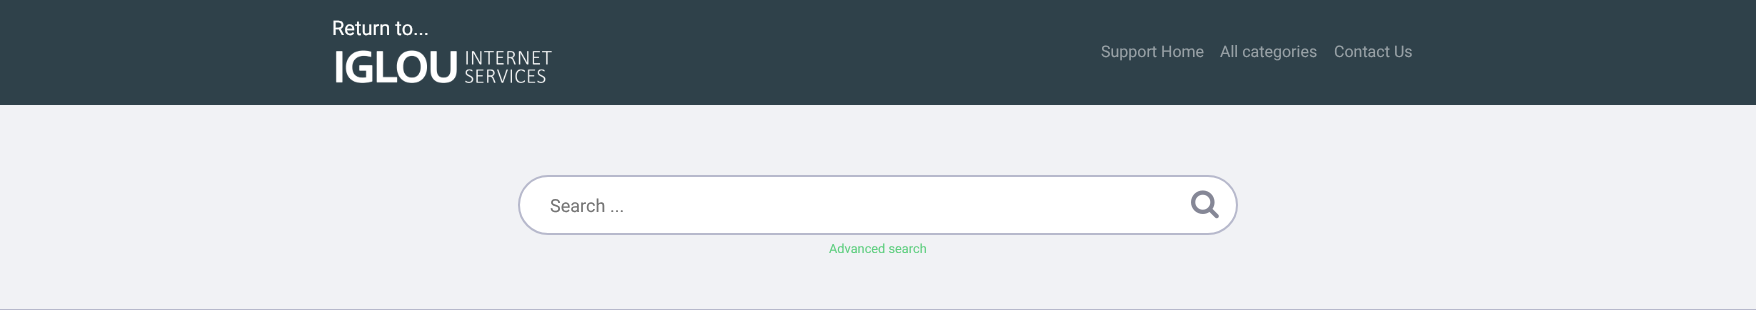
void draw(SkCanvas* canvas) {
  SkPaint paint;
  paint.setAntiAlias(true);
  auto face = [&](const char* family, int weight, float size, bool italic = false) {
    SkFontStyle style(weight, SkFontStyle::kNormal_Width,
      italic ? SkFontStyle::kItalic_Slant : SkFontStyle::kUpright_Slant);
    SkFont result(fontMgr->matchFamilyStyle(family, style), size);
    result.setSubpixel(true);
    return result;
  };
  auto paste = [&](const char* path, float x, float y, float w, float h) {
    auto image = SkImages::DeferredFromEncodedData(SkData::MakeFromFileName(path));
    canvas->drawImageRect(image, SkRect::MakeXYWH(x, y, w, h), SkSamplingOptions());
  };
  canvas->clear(0xffffffff);
  paint.setColor(0xff2f414a);
  canvas->drawRect(SkRect::MakeXYWH(0, 0, 1756, 105), paint);
  paste("img/1.png", 335, 50, 217, 33);
  paint.setColor(0xfff1f2f5);
  canvas->drawRect(SkRect::MakeXYWH(0, 105, 1756, 204), paint);
  paint.setColor(0xffb7b9cc);
  canvas->drawRect(SkRect::MakeXYWH(0, 309, 1756, 1), paint);
  paint.setColor(0xffffffff);
  canvas->drawRoundRect(SkRect::MakeXYWH(519, 176, 718, 58), 29, 29, paint);
  paint.setStroke(true);
  paint.setStrokeWidth(2);
  paint.setColor(0xffb7b9cc);
  canvas->drawRoundRect(SkRect::MakeXYWH(519, 176, 718, 58), 29, 29, paint);
  paste("img/2.png", 1191, 190, 28, 29);
  auto f0 = face("Roboto", 400, 20);
  paint.setStroke(false);
  paint.setColor(0xffffffff);
  canvas->drawString("Return to...", 332, 35, f0, paint);
  auto f1 = face("Roboto", 400, 16);
  paint.setColor(0xff97a0a5);
  {
    const struct { const char* s; float x, y; } items[] = {
      {"Support Home", 1101, 57},
      {"All categories", 1220, 57},
      {"Contact Us", 1334, 57},
    };
    for (auto [s, x, y] : items) {
      canvas->drawString(s, x, y, f1, paint);
    }
  }
  auto f2 = face("Roboto", 400, 18);
  paint.setColor(0xff757575);
  canvas->drawString("Search ...", 550, 212, f2, paint);
  auto f3 = face("Roboto", 400, 12.75f);
  paint.setColor(0xff5fcf80);
  canvas->drawString("Advanced search", 829, 253, f3, paint);
}
